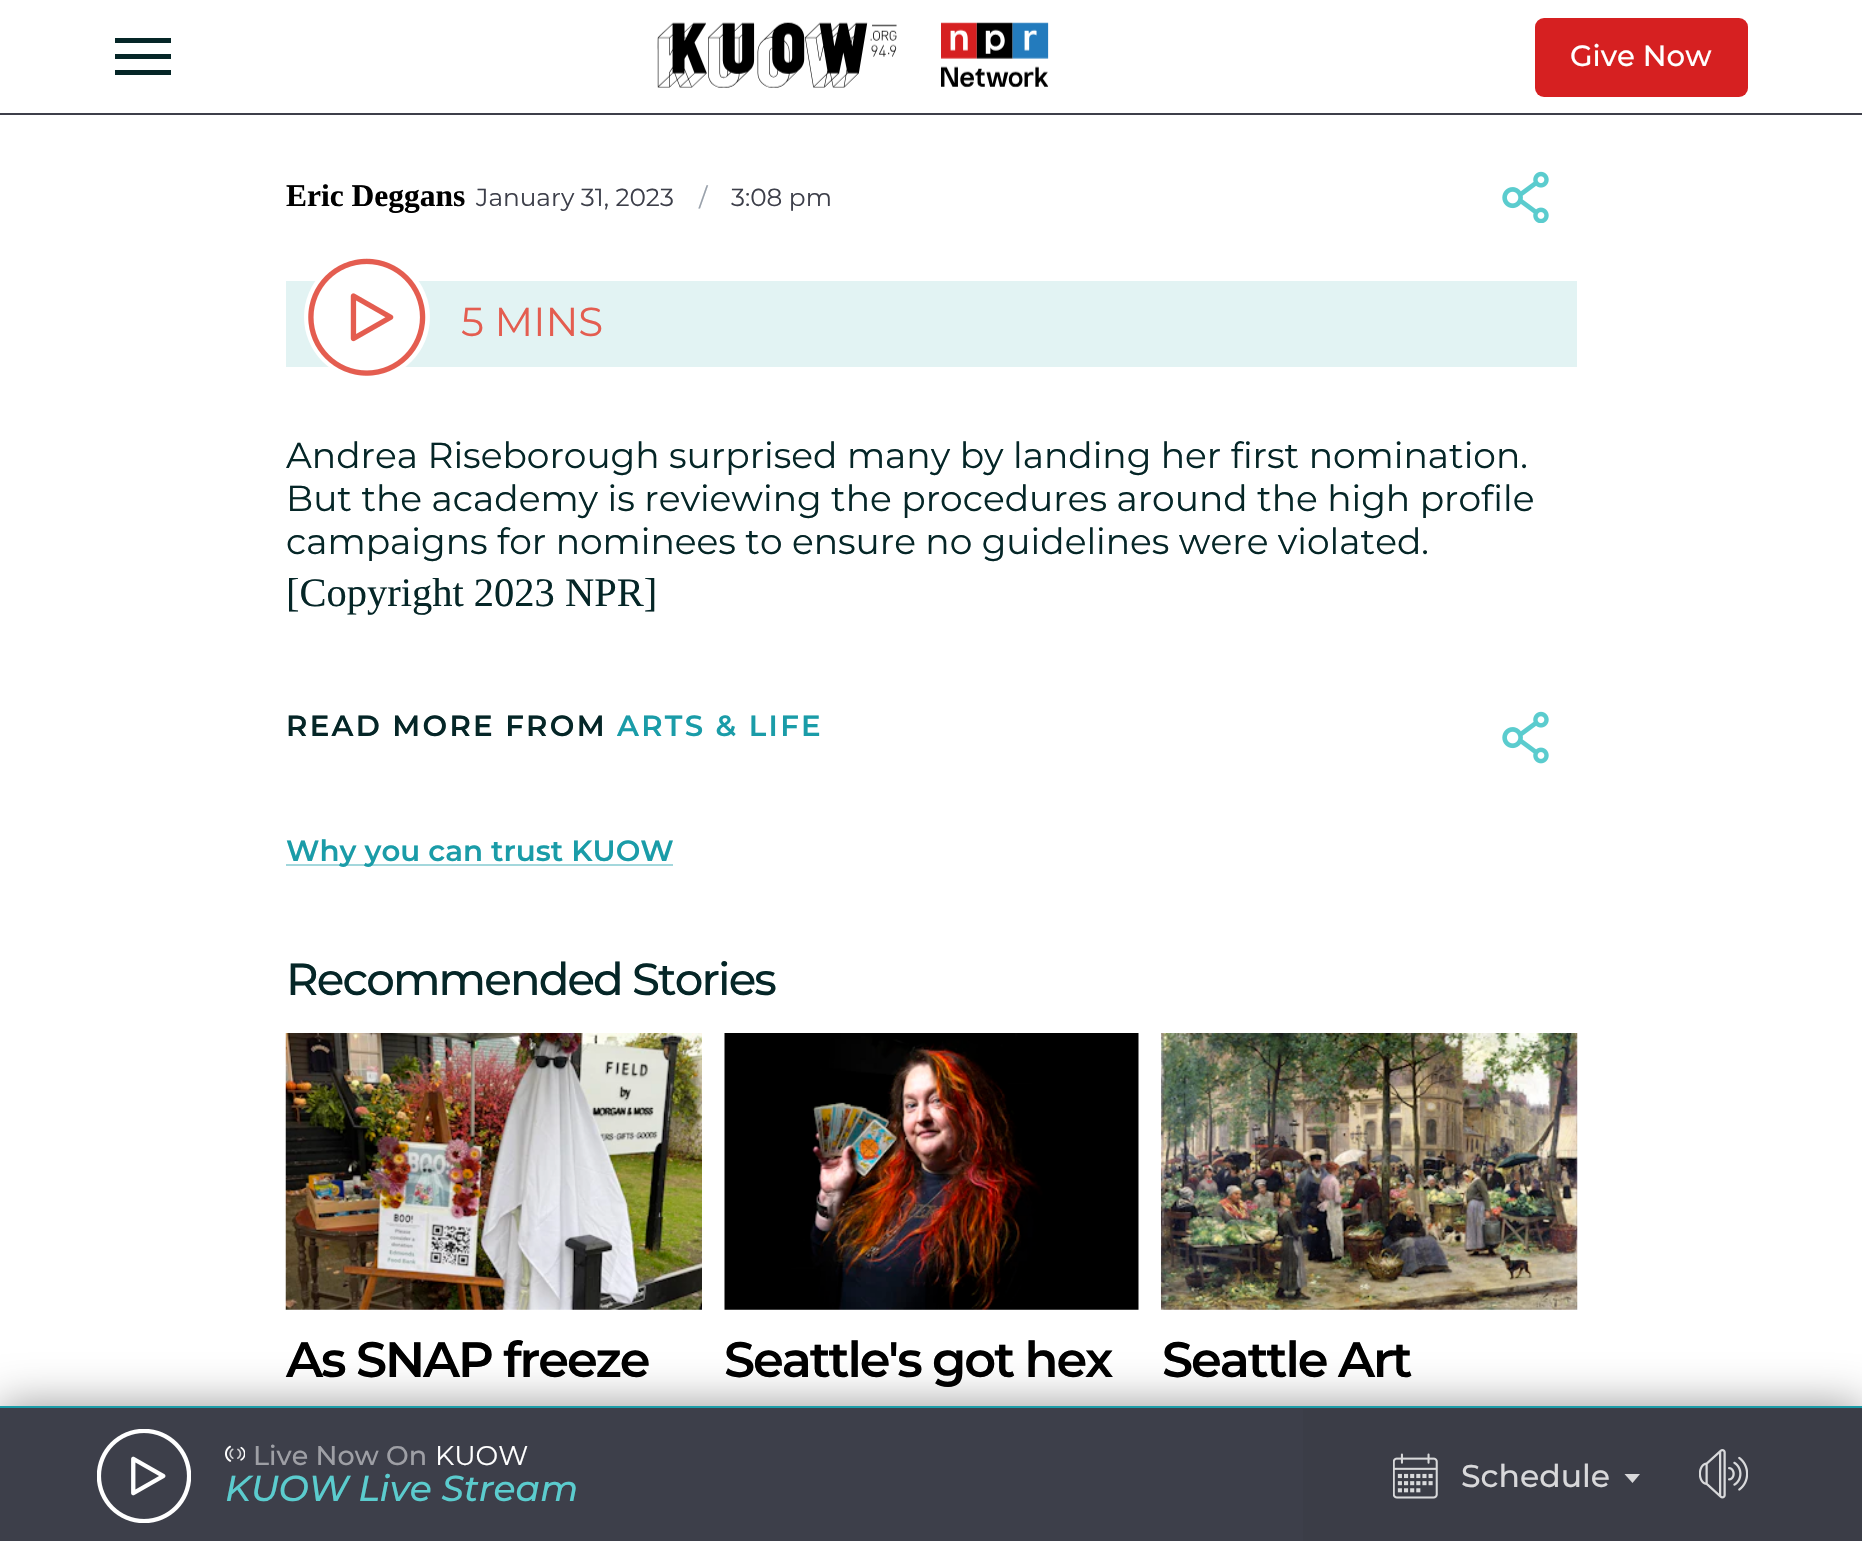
void draw(SkCanvas* canvas) {
  SkPaint paint;
  paint.setAntiAlias(true);
  auto face = [&](const char* family, int weight, float size, bool italic = false) {
    SkFontStyle style(weight, SkFontStyle::kNormal_Width,
      italic ? SkFontStyle::kItalic_Slant : SkFontStyle::kUpright_Slant);
    SkFont result(fontMgr->matchFamilyStyle(family, style), size);
    result.setSubpixel(true);
    return result;
  };
  auto writeSpaced = [&](const char* s, float x, float y, const SkFont& font, const SkPaint& ink, float letter, float word) {
    std::vector<SkGlyphID> glyphs(font.countText(s, strlen(s), SkTextEncoding::kUTF8));
    std::vector<float> xs(glyphs.size());
    font.textToGlyphs(s, strlen(s), SkTextEncoding::kUTF8, glyphs);
    font.getXPos(glyphs, xs, x);
    float extra = 0;
    for (size_t i = 0; i < glyphs.size(); i++) {
      xs[i] += extra;
      extra += letter + word * (glyphs[i] == font.unicharToGlyph(' '));
    }
    canvas->drawTextBlob(SkTextBlob::MakeFromPosHGlyphs(glyphs, xs, y, font), 0, 0, ink);
  };
  auto paste = [&](const char* path, float x, float y, float w, float h) {
    auto image = SkImages::DeferredFromEncodedData(SkData::MakeFromFileName(path));
    canvas->drawImageRect(image, SkRect::MakeXYWH(x, y, w, h), SkSamplingOptions());
  };
  auto shape = [&](const char* data, bool evenOdd = false) {
    SkPath result = *SkParsePath::FromSVGString(data);
    if (evenOdd) result.setFillType(SkPathFillType::kEvenOdd);
    return result;
  };
  canvas->clear(0xffffffff);
  {
    const struct { float x, y, w, h; SkColor color; } items[] = {
      {0, 113, 1862, 2, 0xff3d3f4a},
      {115, 38, 56, 5, 0xff052627},
      {115, 54, 56, 5, 0xff052627},
      {115, 70, 56, 5, 0xff052627},
    };
    for (auto [x, y, w, h, color] : items) {
      paint.setColor(color);
      canvas->drawRect(SkRect::MakeXYWH(x, y, w, h), paint);
    }
  }
  paste("img/1.png", 657, 22, 392, 66);
  paint.setColor(0xffd62021);
  canvas->drawRoundRect(SkRect::MakeXYWH(1535, 18, 213, 79), 9, 9, paint);
  paste("img/2.png", 1502, 171, 47, 52);
  paint.setColor(0xffe2f3f3);
  canvas->drawRect(SkRect::MakeXYWH(286, 281, 1291, 86), paint);
  paint.setColor(0xffffffff);
  canvas->drawCircle(367, 317, 63, paint);
  paste("img/3.png", 308, 258, 118, 118);
  paste("img/4.png", 1502, 711, 47, 53);
  paint.setColor(0xffa3d7dc);
  canvas->drawRect(SkRect::MakeXYWH(286, 864, 387, 2), paint);
  paste("img/5.png", 285, 1033, 417, 277);
  paste("img/6.png", 724, 1033, 415, 277);
  paste("img/7.png", 1161, 1033, 417, 277);
  paint.setColor(0x6b000000);
  paint.setMaskFilter(SkMaskFilter::MakeBlur(kNormal_SkBlurStyle, 22.5f));
  canvas->drawRect(SkRect::MakeXYWH(0, 1406, 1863, 135), paint);
  paint.setMaskFilter(nullptr);
  paint.setColor(0xff3d3f4a);
  canvas->drawRect(SkRect::MakeXYWH(0, 1408, 1862, 133), paint);
  paint.setColor(0xff1a9ca8);
  canvas->drawRect(SkRect::MakeXYWH(0, 1406, 1862, 2), paint);
  paste("img/8.png", 97, 1429, 94, 94);
  paste("img/9.png", 225, 1445, 20, 17);
  paint.setColor(0xff3b3d47);
  canvas->drawRect(SkRect::MakeXYWH(1303, 1409, 559, 132), paint);
  paste("img/10.png", 1393, 1453, 45, 46);
  paint.setColor(0xffd8d8da);
  canvas->drawPath(shape("M1632.5 1483L1624.5 1474H1640Z", true), paint);
  paste("img/11.png", 1699, 1449, 49, 50);
  auto f0 = face("Montserrat", 500, 29.25f);
  paint.setColor(0xffffffff);
  canvas->drawString("Give Now", 1570, 66, f0, paint);
  auto f1 = face("Liberation Serif", 700, 31.5f);
  paint.setColor(0xff000000);
  canvas->drawString("Eric Deggans", 286, 206, f1, paint);
  auto f2 = face("Montserrat", 400, 24.75f);
  paint.setColor(0xff3d3f4a);
  canvas->drawString("January 31, 2023", 476, 206, f2, paint);
  paint.setColor(0xff99a1ab);
  canvas->drawString("/", 699, 206, f2, paint);
  paint.setColor(0xff3d3f4a);
  canvas->drawString("3:08 pm", 731, 206, f2, paint);
  auto f3 = face("Montserrat", 400, 40.5f);
  paint.setColor(0xffe45d50);
  canvas->drawString("5 MINS", 461, 336, f3, paint);
  auto f4 = face("Montserrat", 400, 36);
  paint.setColor(0xff052627);
  {
    const struct { const char* s; float x, y; } items[] = {
      {"Andrea Riseborough surprised many by landing her first nomination.", 286, 468},
      {"But the academy is reviewing the procedures around the high profile", 286, 511},
      {"campaigns for nominees to ensure no guidelines were violated.", 286, 554},
    };
    for (auto [s, x, y] : items) {
      canvas->drawString(s, x, y, f4, paint);
    }
  }
  auto f5 = face("Liberation Serif", 400, 40.5f);
  canvas->drawString("[Copyright 2023 NPR]", 286, 606, f5, paint);
  auto f6 = face("Montserrat", 600, 29.25f);
  writeSpaced("READ MORE FROM", 286, 736, f6, paint, 2.25f, 0);
  paint.setColor(0xff1a9ca8);
  writeSpaced("ARTS & LIFE", 617, 736, f6, paint, 2.25f, 0);
  canvas->drawString("Why you can trust KUOW", 286, 861, f6, paint);
  auto f7 = face("Montserrat", 500, 45);
  paint.setColor(0xff052627);
  writeSpaced("Recommended Stories", 286, 995, f7, paint, -1.9f, 0);
  auto f8 = face("Montserrat", 600, 49.5f);
  paint.setColor(0xff000000);
  {
    const struct { const char* s; float x, y; } items[] = {
      {"As SNAP freeze", 286, 1377},
      {"Seattle's got hex", 724, 1377},
      {"Seattle Art", 1162, 1377},
    };
    for (auto [s, x, y] : items) {
      writeSpaced(s, x, y, f8, paint, -2.1f, 0);
    }
  }
  auto f9 = face("Montserrat", 500, 27);
  paint.setColor(0xff9e9fa5);
  canvas->drawString("Live Now On", 253, 1465, f9, paint);
  auto f10 = face("Montserrat", 400, 27);
  paint.setColor(0xffffffff);
  canvas->drawString("KUOW", 435, 1465, f10, paint);
  auto f11 = face("Montserrat", 500, 36, true);
  paint.setColor(0xff5bccce);
  canvas->drawString("KUOW Live Stream", 225, 1501, f11, paint);
  auto f12 = face("Montserrat", 500, 31.5f);
  paint.setColor(0xffd8d8da);
  canvas->drawString("Schedule", 1461, 1487, f12, paint);
}
